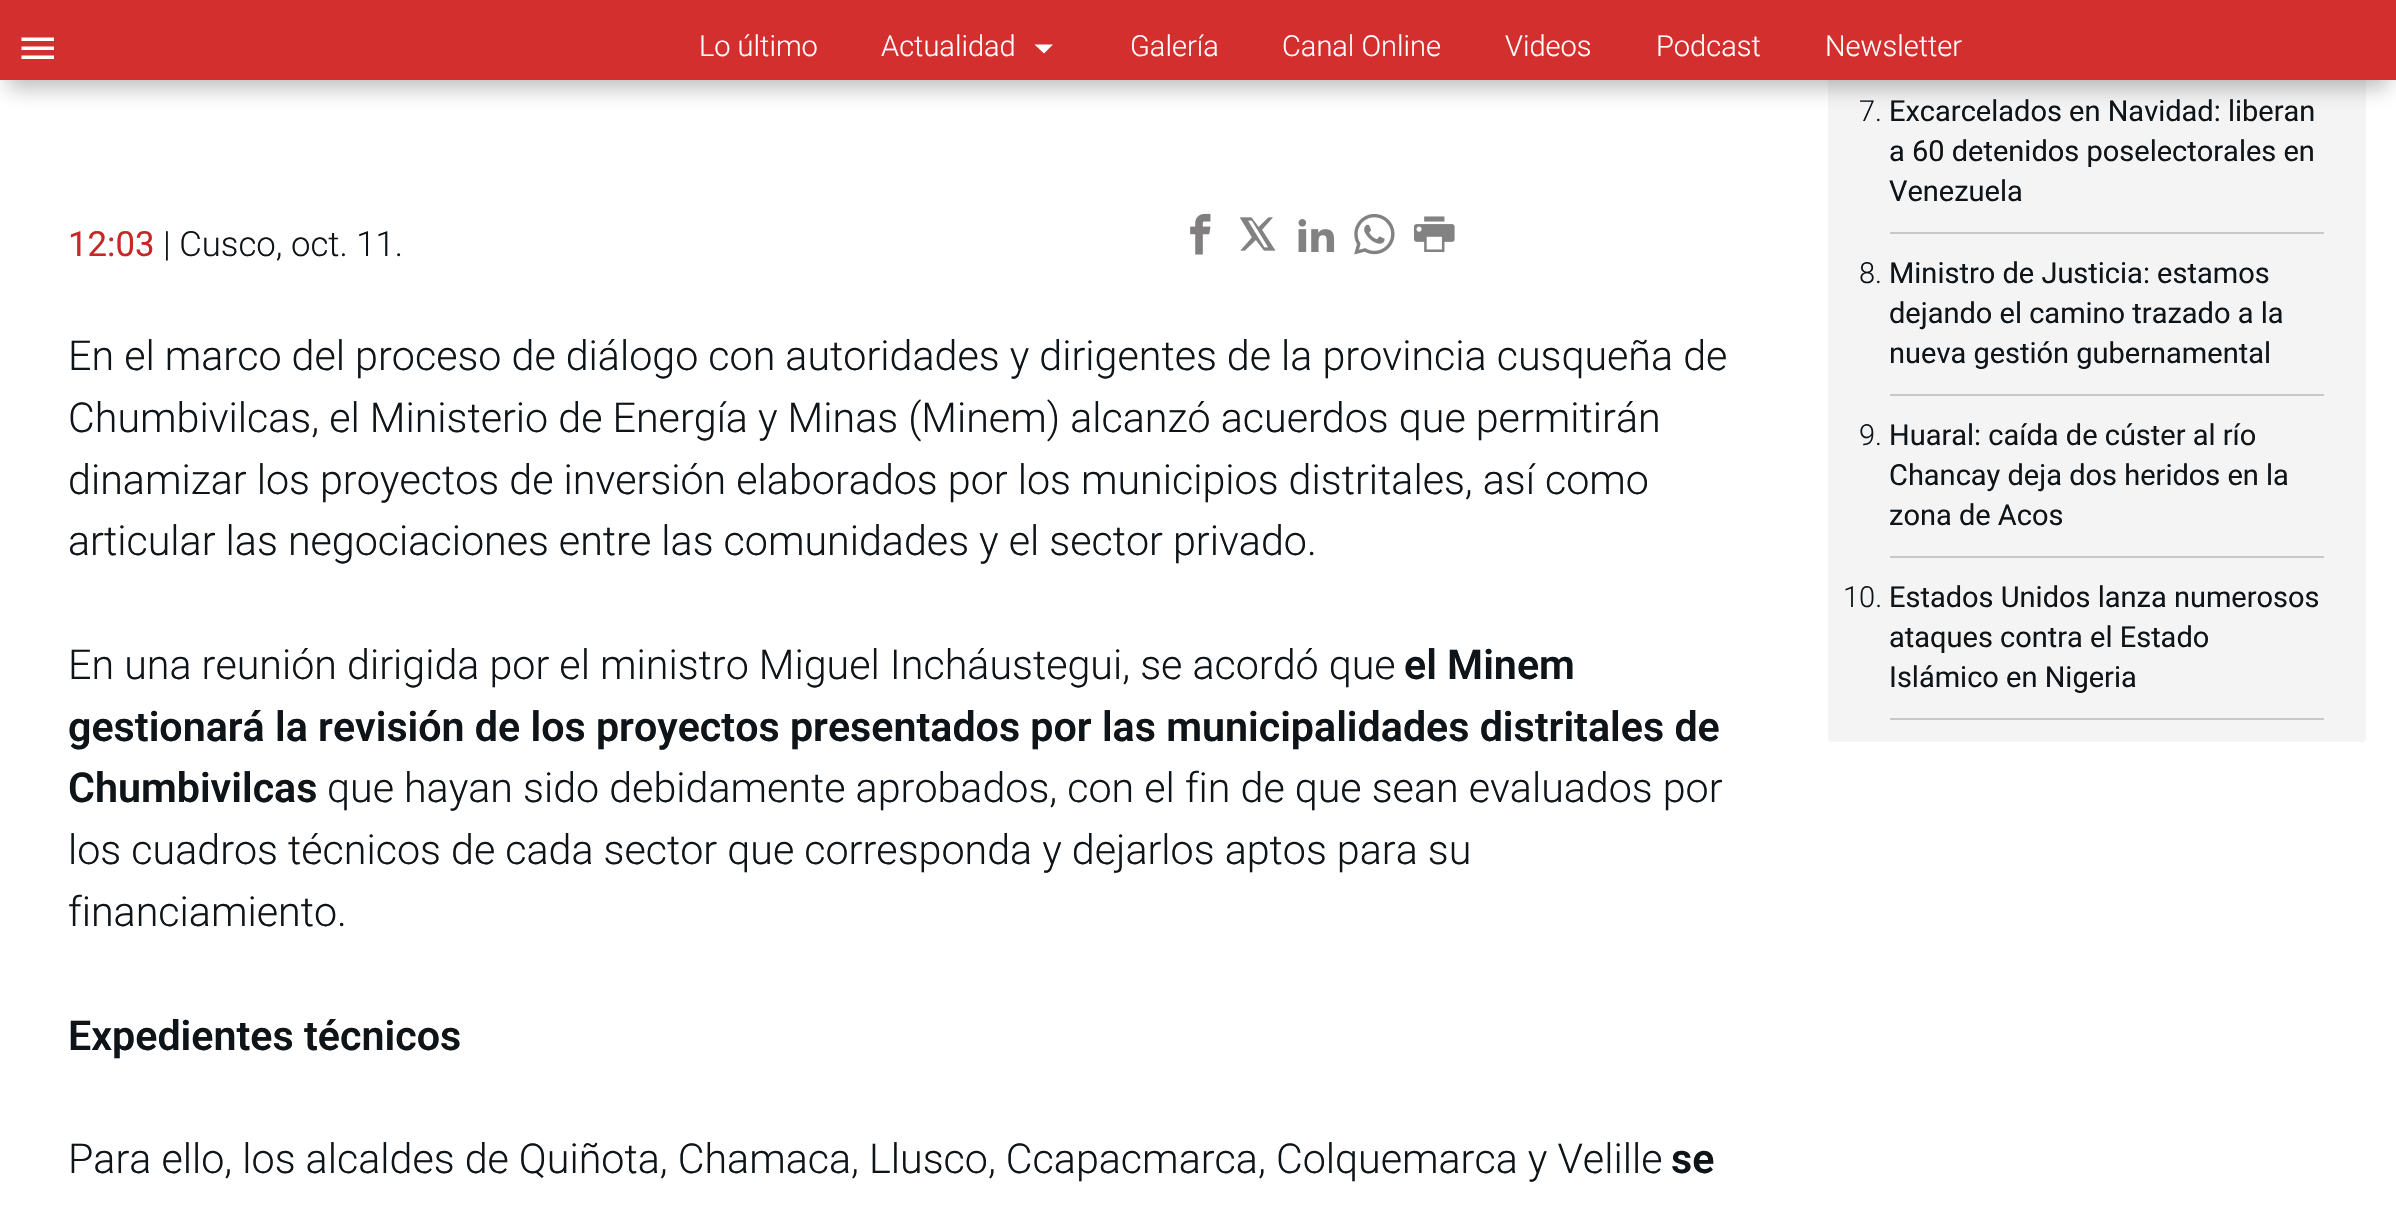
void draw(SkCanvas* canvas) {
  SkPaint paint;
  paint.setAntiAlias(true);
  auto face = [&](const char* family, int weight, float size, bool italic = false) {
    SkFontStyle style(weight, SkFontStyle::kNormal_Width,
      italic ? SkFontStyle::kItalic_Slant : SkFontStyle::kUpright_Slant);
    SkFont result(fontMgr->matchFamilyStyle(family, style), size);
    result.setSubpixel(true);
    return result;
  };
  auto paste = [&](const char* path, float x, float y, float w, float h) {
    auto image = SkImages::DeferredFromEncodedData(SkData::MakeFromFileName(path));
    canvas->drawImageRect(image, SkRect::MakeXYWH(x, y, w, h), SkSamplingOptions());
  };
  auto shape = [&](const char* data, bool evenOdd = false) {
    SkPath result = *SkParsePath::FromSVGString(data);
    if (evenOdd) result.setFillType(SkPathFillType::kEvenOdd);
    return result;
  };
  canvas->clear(0xffffffff);
  paint.setColor(0xfff4f4f4);
  canvas->drawRoundRect(SkRect::MakeXYWH(1828, -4, 538, 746), 4, 4, paint);
  paint.setColor(0x54323232);
  paint.setMaskFilter(SkMaskFilter::MakeBlur(kNormal_SkBlurStyle, 10));
  canvas->drawRect(SkRect::MakeXYWH(8, 24, 2380, 64), paint);
  paint.setMaskFilter(nullptr);
  paint.setColor(0xffd32f2f);
  canvas->drawRect(SkRect::MakeXYWH(0, 0, 2396, 80), paint);
  paint.setColor(0xffffffff);
  canvas->drawPath(shape("M21.5 37.5H54V41H21.5ZM21.5 50V46.5H54V50ZM21.5 59V55.5H54V59Z"), paint);
  canvas->drawPath(shape("M1034.5 44.5H1053L1044 53.5Z"), paint);
  paste("img/1.png", 1190, 213, 21, 42);
  paste("img/2.png", 1239, 217, 37, 34);
  paste("img/3.png", 1298, 219, 37, 33);
  paste("img/4.png", 1354, 213, 41, 42);
  paste("img/5.png", 1414, 216, 41, 36);
  {
    const struct { float x, y, w, h; SkColor color; } items[] = {
      {1890, 232, 434, 2, 0xffc7c8ca},
      {1890, 394, 434, 2, 0xffc7c8ca},
      {1890, 556, 434, 2, 0xffc7c8ca},
      {1890, 718, 434, 2, 0xffc7c8ca},
    };
    for (auto [x, y, w, h, color] : items) {
      paint.setColor(color);
      canvas->drawRect(SkRect::MakeXYWH(x, y, w, h), paint);
    }
  }
  auto f0 = face("Roboto", 300, 29);
  paint.setColor(0xffffffff);
  {
    const struct { const char* s; float x, y; } items[] = {
      {"Lo último", 699, 56},
      {"Actualidad", 881, 56},
      {"Galería", 1130, 56},
      {"Canal Online", 1282, 56},
      {"Videos", 1505, 56},
      {"Podcast", 1656, 56},
      {"Newsletter", 1825, 56},
    };
    for (auto [s, x, y] : items) {
      canvas->drawString(s, x, y, f0, paint);
    }
  }
  auto f1 = face("Roboto", 400, 34.75f);
  paint.setColor(0xffc62828);
  canvas->drawString("12:03", 68, 256, f1, paint);
  auto f2 = face("Roboto", 300, 34.75f);
  paint.setColor(0xff0f1418);
  canvas->drawString("| Cusco, oct. 11.", 163, 256, f2, paint);
  auto f3 = face("Roboto", 300, 41.2f);
  {
    const struct { const char* s; float x, y; } items[] = {
      {"En el marco del proceso de diálogo con autoridades y dirigentes de la provincia cusqueña de", 68, 370},
      {"Chumbivilcas, el Ministerio de Energía y Minas (Minem) alcanzó acuerdos que permitirán", 68, 432},
      {"dinamizar los proyectos de inversión elaborados por los municipios distritales, así como", 68, 494},
      {"articular las negociaciones entre las comunidades y el sector privado.", 68, 555},
      {"En una reunión dirigida por el ministro Miguel Incháustegui, se acordó que", 68, 679},
    };
    for (auto [s, x, y] : items) {
      canvas->drawString(s, x, y, f3, paint);
    }
  }
  auto f4 = face("Roboto", 600, 41.2f);
  {
    const struct { const char* s; float x, y; } items[] = {
      {"el Minem", 1404, 679},
      {"gestionará la revisión de los proyectos presentados por las municipalidades distritales de", 68, 741},
      {"Chumbivilcas", 68, 802},
    };
    for (auto [s, x, y] : items) {
      canvas->drawString(s, x, y, f4, paint);
    }
  }
  {
    const struct { const char* s; float x, y; } items[] = {
      {"que hayan sido debidamente aprobados, con el fin de que sean evaluados por", 327, 802},
      {"los cuadros técnicos de cada sector que corresponda y dejarlos aptos para su", 68, 864},
      {"financiamiento.", 68, 926},
    };
    for (auto [s, x, y] : items) {
      canvas->drawString(s, x, y, f3, paint);
    }
  }
  canvas->drawString("Expedientes técnicos", 68, 1050, f4, paint);
  canvas->drawString("Para ello, los alcaldes de Quiñota, Chamaca, Llusco, Ccapacmarca, Colquemarca y Velille", 68, 1173, f3, paint);
  canvas->drawString("se", 1671, 1173, f4, paint);
  canvas->drawString("7.", 1859, 121, f0, paint);
  auto f5 = face("Roboto", 400, 29);
  {
    const struct { const char* s; float x, y; } items[] = {
      {"Excarcelados en Navidad: liberan", 1889, 121},
      {"a 60 detenidos poselectorales en", 1889, 161},
      {"Venezuela", 1889, 201},
    };
    for (auto [s, x, y] : items) {
      canvas->drawString(s, x, y, f5, paint);
    }
  }
  canvas->drawString("8.", 1859, 283, f0, paint);
  {
    const struct { const char* s; float x, y; } items[] = {
      {"Ministro de Justicia: estamos", 1889, 283},
      {"dejando el camino trazado a la", 1889, 323},
      {"nueva gestión gubernamental", 1889, 363},
    };
    for (auto [s, x, y] : items) {
      canvas->drawString(s, x, y, f5, paint);
    }
  }
  canvas->drawString("9.", 1859, 445, f0, paint);
  {
    const struct { const char* s; float x, y; } items[] = {
      {"Huaral: caída de cúster al río", 1889, 445},
      {"Chancay deja dos heridos en la", 1889, 485},
      {"zona de Acos", 1889, 525},
    };
    for (auto [s, x, y] : items) {
      canvas->drawString(s, x, y, f5, paint);
    }
  }
  canvas->drawString("10.", 1843, 607, f0, paint);
  {
    const struct { const char* s; float x, y; } items[] = {
      {"Estados Unidos lanza numerosos", 1889, 607},
      {"ataques contra el Estado", 1889, 647},
      {"Islámico en Nigeria", 1889, 687},
    };
    for (auto [s, x, y] : items) {
      canvas->drawString(s, x, y, f5, paint);
    }
  }
}
